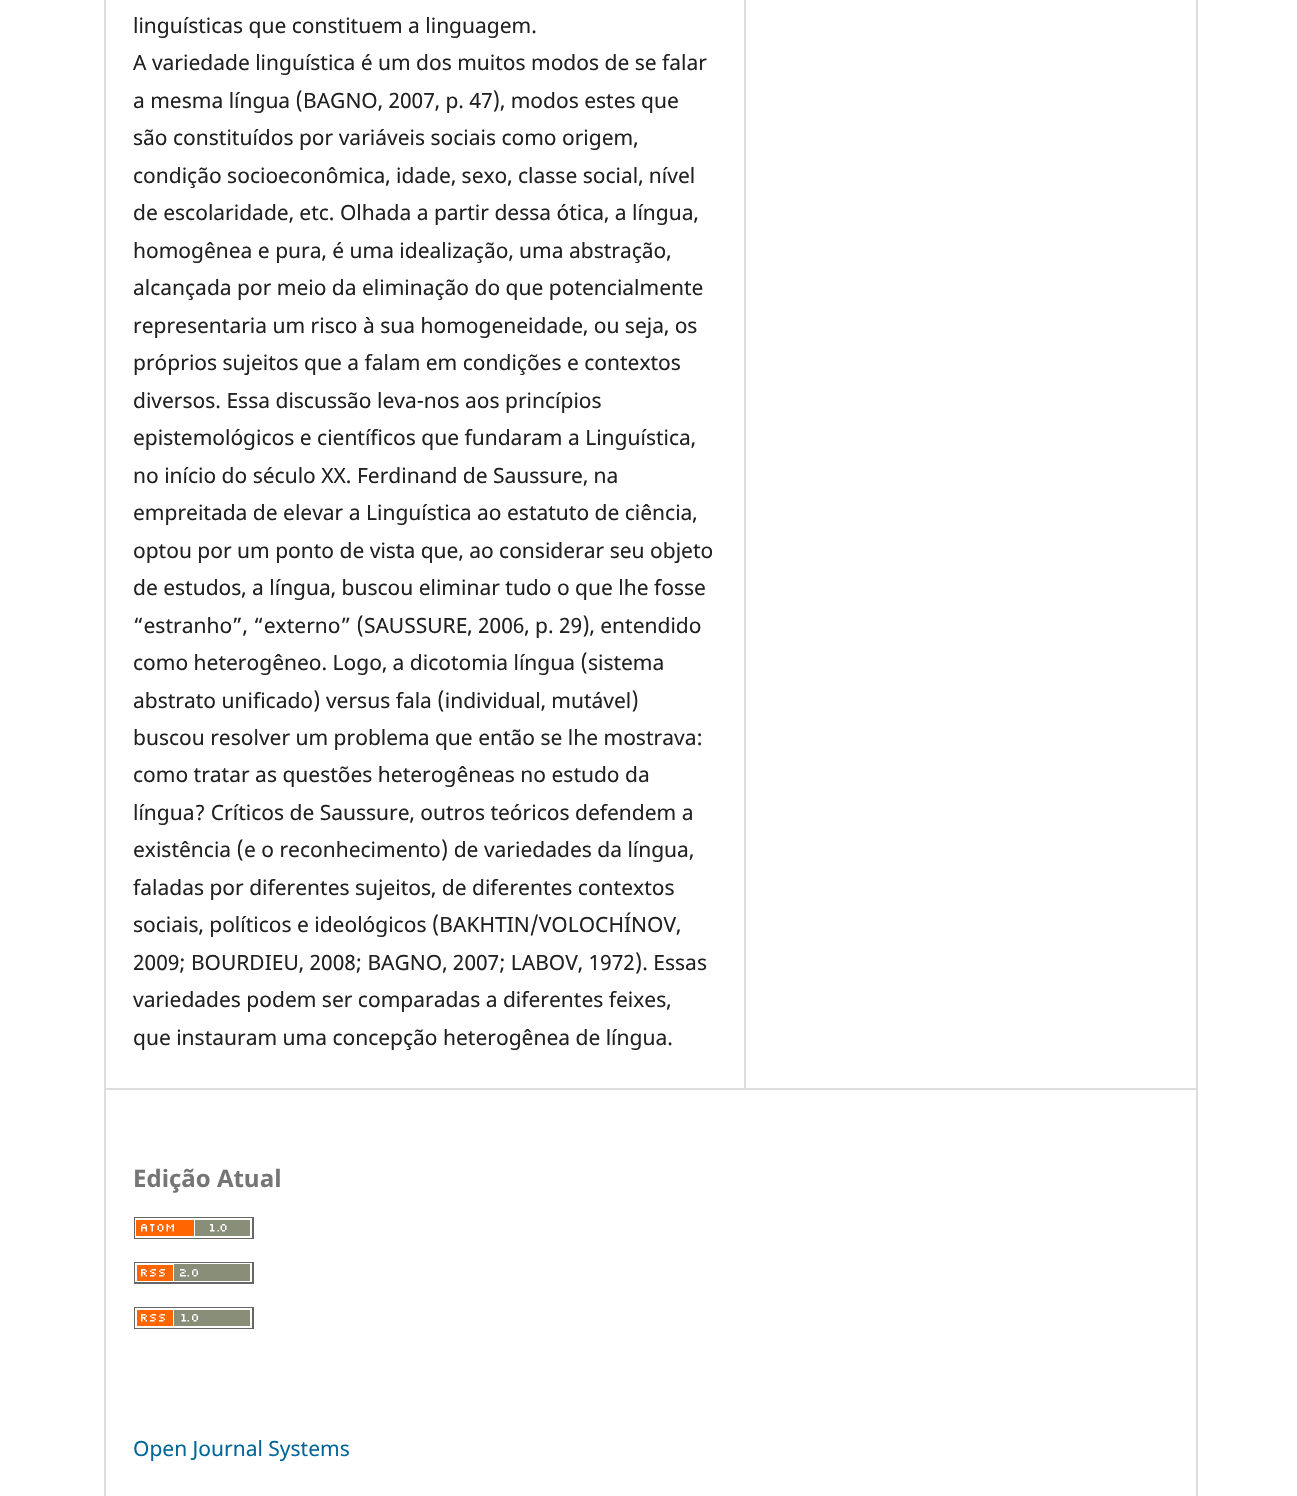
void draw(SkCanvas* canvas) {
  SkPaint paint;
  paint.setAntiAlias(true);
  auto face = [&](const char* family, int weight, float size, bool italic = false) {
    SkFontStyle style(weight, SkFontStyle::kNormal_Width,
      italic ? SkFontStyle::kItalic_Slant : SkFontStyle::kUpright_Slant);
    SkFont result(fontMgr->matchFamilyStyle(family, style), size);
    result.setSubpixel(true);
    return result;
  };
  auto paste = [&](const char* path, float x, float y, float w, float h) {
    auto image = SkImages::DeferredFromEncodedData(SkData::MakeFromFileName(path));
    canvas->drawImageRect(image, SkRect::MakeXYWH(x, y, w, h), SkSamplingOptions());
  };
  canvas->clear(0xffffffff);
  {
    const struct { float x, y, w, h; SkColor color; } items[] = {
      {104, 1088, 1092, 2, 0xffdddddd},
      {104, 0, 2, 1496, 0xffdddddd},
      {744, 0, 2, 1088, 0xffdddddd},
      {1196, 0, 2, 1496, 0xffdddddd},
    };
    for (auto [x, y, w, h, color] : items) {
      paint.setColor(color);
      canvas->drawRect(SkRect::MakeXYWH(x, y, w, h), paint);
    }
  }
  paste("img/1.png", 134, 1217, 120, 22);
  paste("img/2.png", 134, 1262, 120, 22);
  paste("img/3.png", 134, 1307, 120, 22);
  auto f0 = face("Noto Sans", 400, 21);
  paint.setColor(0xff212121);
  {
    const struct { const char* s; float x, y; } items[] = {
      {"linguísticas que constituem a linguagem.", 133, 33},
      {"A variedade linguística é um dos muitos modos de se falar", 133, 70},
      {"a mesma língua (BAGNO, 2007, p. 47), modos estes que", 133, 108},
      {"são constituídos por variáveis sociais como origem,", 133, 145},
      {"condição socioeconômica, idade, sexo, classe social, nível", 133, 183},
      {"de escolaridade, etc. Olhada a partir dessa ótica, a língua,", 133, 220},
      {"homogênea e pura, é uma idealização, uma abstração,", 133, 258},
      {"alcançada por meio da eliminação do que potencialmente", 133, 295},
      {"representaria um risco à sua homogeneidade, ou seja, os", 133, 333},
      {"próprios sujeitos que a falam em condições e contextos", 133, 370},
      {"diversos. Essa discussão leva-nos aos princípios", 133, 408},
      {"epistemológicos e científicos que fundaram a Linguística,", 133, 445},
      {"no início do século XX. Ferdinand de Saussure, na", 133, 483},
      {"empreitada de elevar a Linguística ao estatuto de ciência,", 133, 520},
      {"optou por um ponto de vista que, ao considerar seu objeto", 133, 558},
      {"de estudos, a língua, buscou eliminar tudo o que lhe fosse", 133, 595},
      {"“estranho”, “externo” (SAUSSURE, 2006, p. 29), entendido", 133, 633},
      {"como heterogêneo. Logo, a dicotomia língua (sistema", 133, 670},
      {"abstrato unificado) versus fala (individual, mutável)", 133, 708},
      {"buscou resolver um problema que então se lhe mostrava:", 133, 745},
      {"como tratar as questões heterogêneas no estudo da", 133, 782},
      {"língua? Críticos de Saussure, outros teóricos defendem a", 133, 820},
      {"existência (e o reconhecimento) de variedades da língua,", 133, 857},
      {"faladas por diferentes sujeitos, de diferentes contextos", 133, 895},
      {"sociais, políticos e ideológicos (BAKHTIN/VOLOCHÍNOV,", 133, 932},
      {"2009; BOURDIEU, 2008; BAGNO, 2007; LABOV, 1972). Essas", 133, 970},
      {"variedades podem ser comparadas a diferentes feixes,", 133, 1007},
      {"que instauram uma concepção heterogênea de língua.", 133, 1045},
    };
    for (auto [s, x, y] : items) {
      canvas->drawString(s, x, y, f0, paint);
    }
  }
  auto f1 = face("Noto Sans", 700, 24);
  paint.setColor(0xff757575);
  canvas->drawString("Edição Atual", 133, 1187, f1, paint);
  paint.setColor(0xff006798);
  canvas->drawString("Open Journal Systems", 133, 1456, f0, paint);
}
